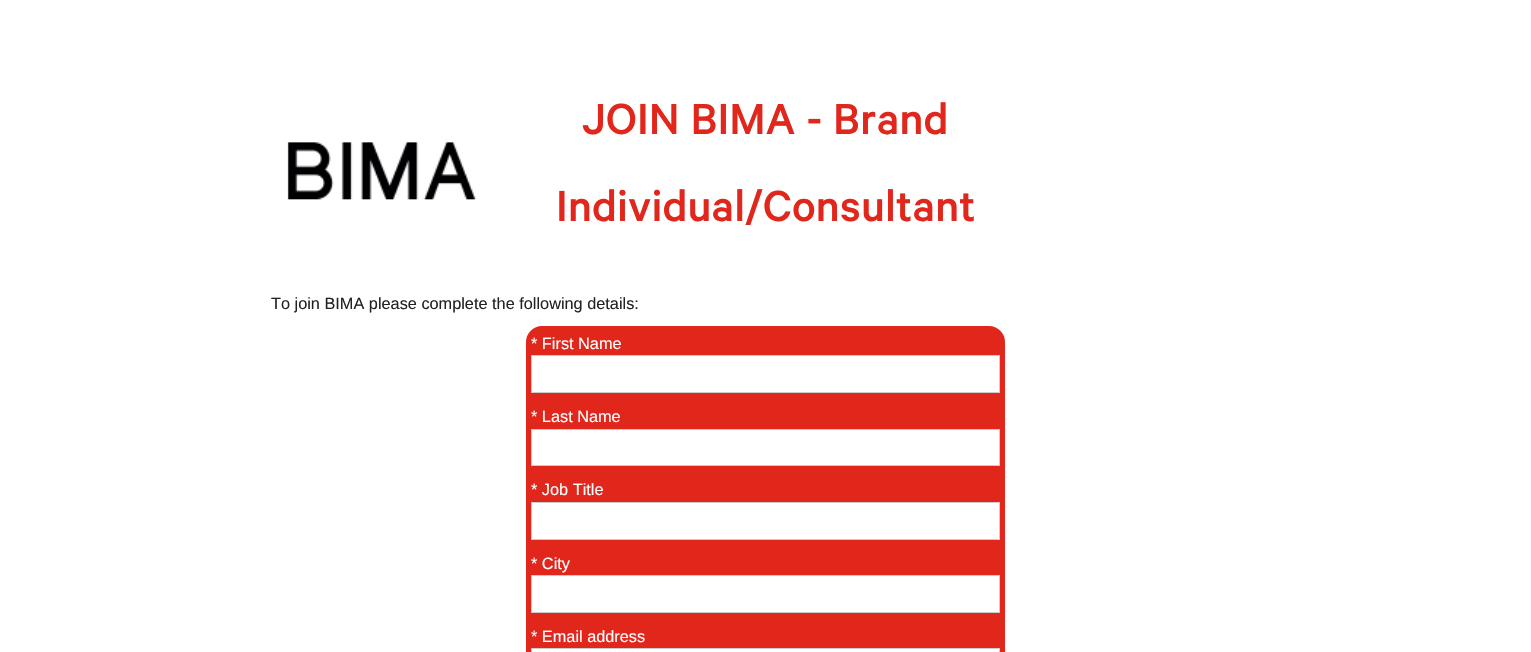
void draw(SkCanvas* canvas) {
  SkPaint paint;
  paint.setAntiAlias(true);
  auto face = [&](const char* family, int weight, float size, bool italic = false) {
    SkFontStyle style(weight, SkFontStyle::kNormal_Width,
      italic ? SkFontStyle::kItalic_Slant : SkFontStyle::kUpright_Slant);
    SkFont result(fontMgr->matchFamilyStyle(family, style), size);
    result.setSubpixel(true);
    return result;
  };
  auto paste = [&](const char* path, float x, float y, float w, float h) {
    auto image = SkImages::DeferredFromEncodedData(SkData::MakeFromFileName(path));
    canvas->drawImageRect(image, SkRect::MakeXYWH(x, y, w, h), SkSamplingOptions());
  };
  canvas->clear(0xffffffff);
  paste("img/1.png", 287, 142, 189, 58);
  paint.setColor(0xffe1261c);
  canvas->drawRoundRect(SkRect::MakeXYWH(526, 326, 479, 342), 16, 16, paint);
  paint.setColor(0xffffffff);
  canvas->drawRect(SkRect::MakeXYWH(531.5f, 355.5f, 468, 37), paint);
  paint.setStroke(true);
  paint.setStrokeWidth(1);
  paint.setColor(0xffcccccc);
  canvas->drawRect(SkRect::MakeXYWH(531.5f, 355.5f, 468, 37), paint);
  paint.setStroke(false);
  paint.setColor(0xffffffff);
  canvas->drawRect(SkRect::MakeXYWH(531.5f, 429.5f, 468, 36), paint);
  paint.setStroke(true);
  paint.setColor(0xffcccccc);
  canvas->drawRect(SkRect::MakeXYWH(531.5f, 429.5f, 468, 36), paint);
  paint.setStroke(false);
  paint.setColor(0xffffffff);
  canvas->drawRect(SkRect::MakeXYWH(531.5f, 502.5f, 468, 37), paint);
  paint.setStroke(true);
  paint.setColor(0xffcccccc);
  canvas->drawRect(SkRect::MakeXYWH(531.5f, 502.5f, 468, 37), paint);
  paint.setStroke(false);
  paint.setColor(0xffffffff);
  canvas->drawRect(SkRect::MakeXYWH(531.5f, 575.5f, 468, 37), paint);
  paint.setStroke(true);
  paint.setColor(0xffcccccc);
  canvas->drawRect(SkRect::MakeXYWH(531.5f, 575.5f, 468, 37), paint);
  paint.setStroke(false);
  paint.setColor(0xffffffff);
  canvas->drawRect(SkRect::MakeXYWH(531.5f, 648.5f, 468, 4), paint);
  paint.setStroke(true);
  paint.setColor(0xffcccccc);
  canvas->drawRect(SkRect::MakeXYWH(531.5f, 648.5f, 468, 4), paint);
  auto f0 = face("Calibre", 500, 49);
  paint.setStroke(false);
  paint.setColor(0xffe1261c);
  canvas->drawString("JOIN BIMA - Brand", 582, 134, f0, paint);
  canvas->drawString("Individual/Consultant", 556, 221, f0, paint);
  auto f1 = face("Liberation Sans", 400, 16.3f);
  paint.setColor(0xff222222);
  canvas->drawString("To join BIMA please complete the following details:", 271, 309, f1, paint);
  paint.setColor(0xffffffff);
  {
    const struct { const char* s; float x, y; } items[] = {
      {"* First Name", 531, 349},
      {"* Last Name", 531, 422},
      {"* Job Title", 531, 495},
      {"* City", 531, 569},
      {"* Email address", 531, 642},
    };
    for (auto [s, x, y] : items) {
      canvas->drawString(s, x, y, f1, paint);
    }
  }
}
